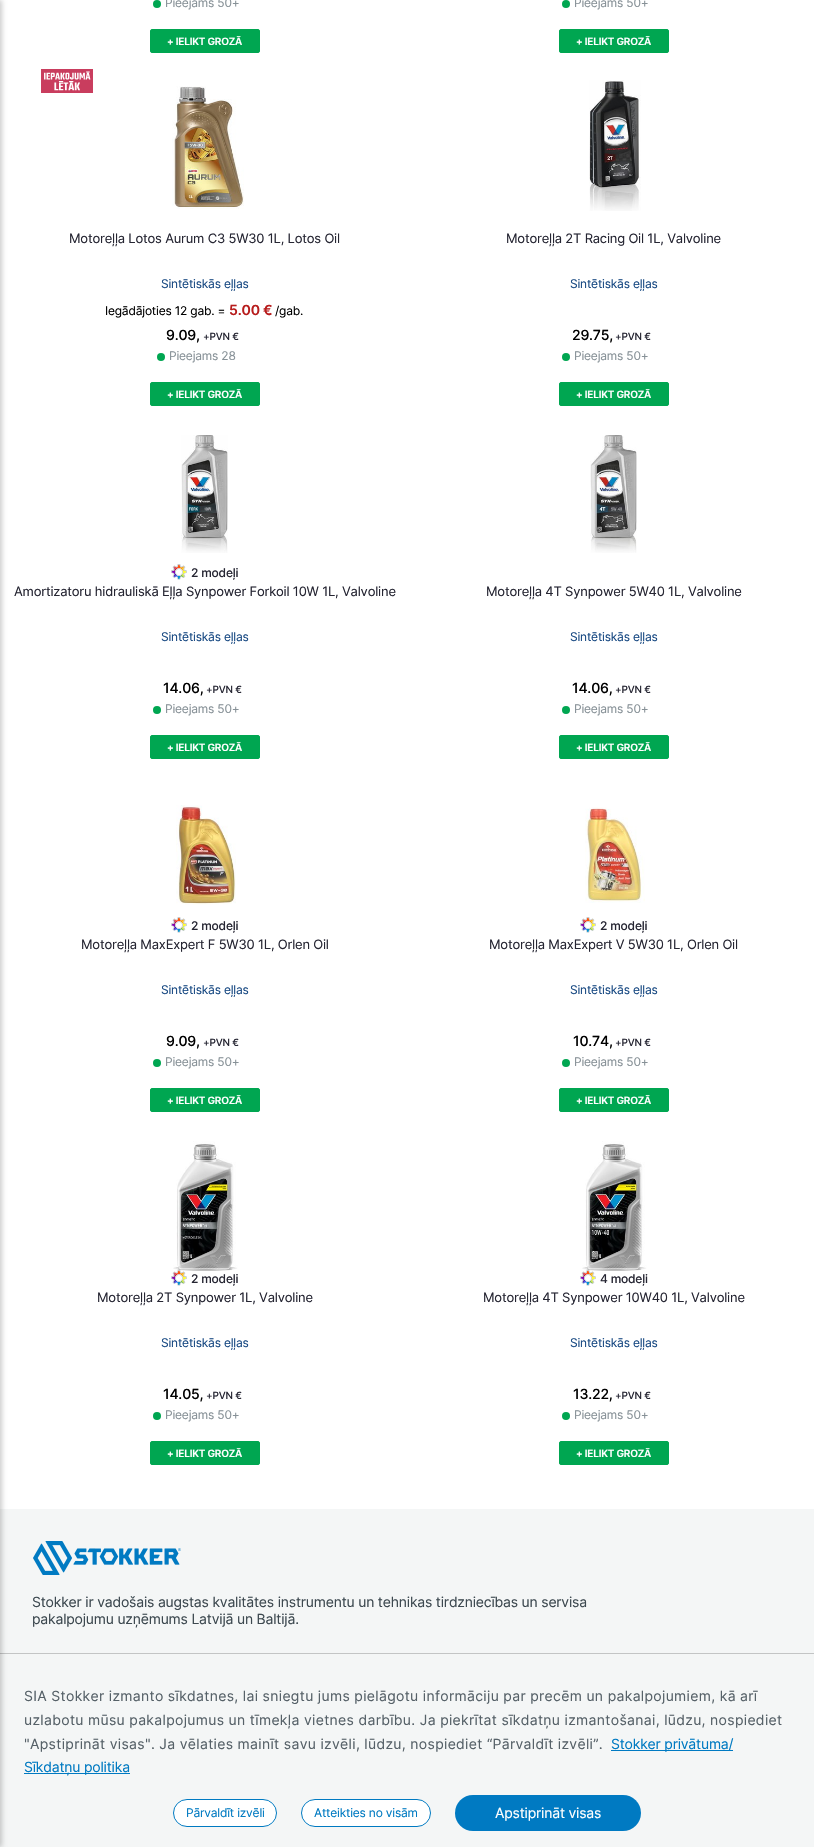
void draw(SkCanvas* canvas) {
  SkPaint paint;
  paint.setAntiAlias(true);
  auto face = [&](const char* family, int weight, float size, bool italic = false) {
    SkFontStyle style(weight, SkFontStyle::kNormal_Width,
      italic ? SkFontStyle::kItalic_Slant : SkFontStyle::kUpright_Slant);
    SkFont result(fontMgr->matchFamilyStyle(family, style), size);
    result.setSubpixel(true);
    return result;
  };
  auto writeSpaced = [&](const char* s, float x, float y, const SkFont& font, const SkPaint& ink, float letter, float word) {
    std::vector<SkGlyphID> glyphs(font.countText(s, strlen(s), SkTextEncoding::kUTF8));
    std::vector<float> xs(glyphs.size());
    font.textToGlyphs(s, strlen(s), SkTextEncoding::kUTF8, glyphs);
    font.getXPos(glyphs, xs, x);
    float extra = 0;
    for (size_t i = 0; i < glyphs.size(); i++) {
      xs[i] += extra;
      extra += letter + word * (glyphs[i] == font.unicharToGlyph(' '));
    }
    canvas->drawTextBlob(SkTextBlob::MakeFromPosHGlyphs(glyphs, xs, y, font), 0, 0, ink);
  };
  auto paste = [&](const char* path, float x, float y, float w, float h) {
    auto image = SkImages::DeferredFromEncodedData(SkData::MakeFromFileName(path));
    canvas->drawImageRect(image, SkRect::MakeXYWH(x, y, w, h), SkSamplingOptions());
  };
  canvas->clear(0xffffffff);
  {
    const struct { float x, y, w, h; SkColor color; } items[] = {
      {0, 1509, 814, 144, 0xfff4f6f6},
      {0, 1654, 814, 193, 0xfff4f6f6},
      {0, 1653, 814, 1, 0xffc3c5c5},
    };
    for (auto [x, y, w, h, color] : items) {
      paint.setColor(color);
      canvas->drawRect(SkRect::MakeXYWH(x, y, w, h), paint);
    }
  }
  paint.setColor(0x33000000);
  paint.setMaskFilter(SkMaskFilter::MakeBlur(kNormal_SkBlurStyle, 2.5f));
  canvas->drawRect(SkRect::MakeXYWH(-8, 0, 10, 1847), paint);
  paint.setMaskFilter(nullptr);
  paint.setColor(0xff00a651);
  canvas->drawCircle(157, 4, 4, paint);
  canvas->drawRoundRect(SkRect::MakeXYWH(150.5f, 29.5f, 109, 23), 1.5f, 1.5f, paint);
  paint.setStroke(true);
  paint.setStrokeWidth(1);
  canvas->drawRoundRect(SkRect::MakeXYWH(150.5f, 29.5f, 109, 23), 1.5f, 1.5f, paint);
  paint.setStroke(false);
  canvas->drawCircle(566, 4, 4, paint);
  canvas->drawRoundRect(SkRect::MakeXYWH(559.5f, 29.5f, 109, 23), 1.5f, 1.5f, paint);
  paint.setStroke(true);
  canvas->drawRoundRect(SkRect::MakeXYWH(559.5f, 29.5f, 109, 23), 1.5f, 1.5f, paint);
  paste("img/1.png", 41, 69, 52, 24);
  paste("img/2.png", 172, 86, 72, 123);
  paint.setStroke(false);
  canvas->drawCircle(161, 357, 4, paint);
  canvas->drawRoundRect(SkRect::MakeXYWH(150.5f, 382.5f, 109, 23), 1.5f, 1.5f, paint);
  paint.setStroke(true);
  canvas->drawRoundRect(SkRect::MakeXYWH(150.5f, 382.5f, 109, 23), 1.5f, 1.5f, paint);
  paste("img/3.png", 589, 80, 52, 131);
  paint.setStroke(false);
  canvas->drawCircle(566, 357, 4, paint);
  canvas->drawRoundRect(SkRect::MakeXYWH(559.5f, 382.5f, 109, 23), 1.5f, 1.5f, paint);
  paint.setStroke(true);
  canvas->drawRoundRect(SkRect::MakeXYWH(559.5f, 382.5f, 109, 23), 1.5f, 1.5f, paint);
  paste("img/4.png", 181, 435, 47, 118);
  paste("img/5.png", 171, 564, 16, 16);
  paint.setStroke(false);
  canvas->drawCircle(157, 710, 4, paint);
  canvas->drawRoundRect(SkRect::MakeXYWH(150.5f, 735.5f, 109, 23), 1.5f, 1.5f, paint);
  paint.setStroke(true);
  canvas->drawRoundRect(SkRect::MakeXYWH(150.5f, 735.5f, 109, 23), 1.5f, 1.5f, paint);
  paste("img/6.png", 590, 435, 47, 118);
  paint.setStroke(false);
  canvas->drawCircle(566, 710, 4, paint);
  canvas->drawRoundRect(SkRect::MakeXYWH(559.5f, 735.5f, 109, 23), 1.5f, 1.5f, paint);
  paint.setStroke(true);
  canvas->drawRoundRect(SkRect::MakeXYWH(559.5f, 735.5f, 109, 23), 1.5f, 1.5f, paint);
  paste("img/7.png", 176, 805, 60, 100);
  paste("img/5.png", 171, 917, 16, 16);
  paint.setStroke(false);
  canvas->drawCircle(157, 1063, 4, paint);
  canvas->drawRoundRect(SkRect::MakeXYWH(150.5f, 1088.5f, 109, 23), 1.5f, 1.5f, paint);
  paint.setStroke(true);
  canvas->drawRoundRect(SkRect::MakeXYWH(150.5f, 1088.5f, 109, 23), 1.5f, 1.5f, paint);
  paste("img/8.png", 585, 807, 60, 96);
  paste("img/5.png", 580, 917, 16, 16);
  paint.setStroke(false);
  canvas->drawCircle(566, 1063, 4, paint);
  canvas->drawRoundRect(SkRect::MakeXYWH(559.5f, 1088.5f, 109, 23), 1.5f, 1.5f, paint);
  paint.setStroke(true);
  canvas->drawRoundRect(SkRect::MakeXYWH(559.5f, 1088.5f, 109, 23), 1.5f, 1.5f, paint);
  paste("img/9.png", 173, 1141, 65, 130);
  paint.setStroke(false);
  paint.setColor(0x99ffffff);
  canvas->drawRect(SkRect::MakeXYWH(173, 1268, 65, 3), paint);
  paste("img/10.png", 171, 1270, 16, 16);
  paint.setColor(0xff00a651);
  canvas->drawCircle(157, 1416, 4, paint);
  canvas->drawRoundRect(SkRect::MakeXYWH(150.5f, 1441.5f, 109, 23), 1.5f, 1.5f, paint);
  paint.setStroke(true);
  canvas->drawRoundRect(SkRect::MakeXYWH(150.5f, 1441.5f, 109, 23), 1.5f, 1.5f, paint);
  paste("img/11.png", 582, 1141, 65, 130);
  paint.setStroke(false);
  paint.setColor(0x99ffffff);
  canvas->drawRect(SkRect::MakeXYWH(582, 1268, 65, 3), paint);
  paste("img/10.png", 580, 1270, 16, 16);
  paint.setColor(0xff00a651);
  canvas->drawCircle(566, 1416, 4, paint);
  canvas->drawRoundRect(SkRect::MakeXYWH(559.5f, 1441.5f, 109, 23), 1.5f, 1.5f, paint);
  paint.setStroke(true);
  canvas->drawRoundRect(SkRect::MakeXYWH(559.5f, 1441.5f, 109, 23), 1.5f, 1.5f, paint);
  paste("img/12.png", 33, 1541, 148, 34);
  paint.setStroke(false);
  paint.setColor(0xff007ac2);
  canvas->drawRect(SkRect::MakeXYWH(611, 1750, 122, 1), paint);
  canvas->drawRect(SkRect::MakeXYWH(24, 1773, 106, 1), paint);
  paint.setColor(0xffffffff);
  canvas->drawRoundRect(SkRect::MakeXYWH(173.5f, 1799.5f, 103, 27), 13.5f, 13.5f, paint);
  paint.setStroke(true);
  paint.setColor(0xff007ac2);
  canvas->drawRoundRect(SkRect::MakeXYWH(173.5f, 1799.5f, 103, 27), 13.5f, 13.5f, paint);
  paint.setStroke(false);
  paint.setColor(0xffffffff);
  canvas->drawRoundRect(SkRect::MakeXYWH(301.5f, 1799.5f, 129, 27), 13.5f, 13.5f, paint);
  paint.setStroke(true);
  paint.setColor(0xff007ac2);
  canvas->drawRoundRect(SkRect::MakeXYWH(301.5f, 1799.5f, 129, 27), 13.5f, 13.5f, paint);
  paint.setStroke(false);
  canvas->drawRoundRect(SkRect::MakeXYWH(455, 1795, 186, 36), 18, 18, paint);
  auto f0 = face("Inter", 400, 12);
  paint.setColor(0xff879197);
  writeSpaced("Pieejams 50+", 165, 7, f0, paint, -0.2f, 0);
  auto f1 = face("Inter", 600, 10);
  paint.setColor(0xffffffff);
  writeSpaced("+ IELIKT GROZĀ", 167, 45, f1, paint, -0.2f, 0);
  paint.setColor(0xff879197);
  writeSpaced("Pieejams 50+", 574, 7, f0, paint, -0.2f, 0);
  paint.setColor(0xffffffff);
  writeSpaced("+ IELIKT GROZĀ", 576, 45, f1, paint, -0.2f, 0);
  auto f2 = face("Inter", 400, 13);
  paint.setColor(0xff262633);
  writeSpaced("Motoreļļa Lotos Aurum C3 5W30 1L, Lotos Oil", 69, 243, f2, paint, -0.2f, 0);
  paint.setColor(0xff194a83);
  writeSpaced("Sintētiskās eļļas", 161, 288, f0, paint, -0.2f, 0);
  paint.setColor(0xff000000);
  writeSpaced("Iegādājoties 12 gab. =", 105, 315, f0, paint, -0.2f, 0);
  auto f3 = face("Inter", 600, 14);
  paint.setColor(0xffb71c1c);
  writeSpaced("5.00 €", 229, 315, f3, paint, -0.2f, 0);
  paint.setColor(0xff000000);
  writeSpaced("/gab.", 275, 315, f0, paint, -0.2f, 0);
  auto f4 = face("Inter", 500, 14);
  writeSpaced("9.09,", 166, 340, f4, paint, -0.2f, 0);
  auto f5 = face("Inter", 500, 10);
  paint.setColor(0xff262633);
  writeSpaced("+PVN €", 203, 340, f5, paint, -0.2f, 0);
  paint.setColor(0xff879197);
  writeSpaced("Pieejams 28", 169, 360, f0, paint, -0.2f, 0);
  paint.setColor(0xffffffff);
  writeSpaced("+ IELIKT GROZĀ", 167, 398, f1, paint, -0.2f, 0);
  paint.setColor(0xff262633);
  writeSpaced("Motoreļļa 2T Racing Oil 1L, Valvoline", 506, 243, f2, paint, -0.2f, 0);
  paint.setColor(0xff194a83);
  writeSpaced("Sintētiskās eļļas", 570, 288, f0, paint, -0.2f, 0);
  paint.setColor(0xff000000);
  writeSpaced("29.75,", 572, 340, f4, paint, -0.2f, 0);
  paint.setColor(0xff262633);
  writeSpaced("+PVN €", 615, 340, f5, paint, -0.2f, 0);
  paint.setColor(0xff879197);
  writeSpaced("Pieejams 50+", 574, 360, f0, paint, -0.2f, 0);
  paint.setColor(0xffffffff);
  writeSpaced("+ IELIKT GROZĀ", 576, 398, f1, paint, -0.2f, 0);
  auto f6 = face("Inter", 500, 12);
  paint.setColor(0xff262633);
  writeSpaced("2 modeļi", 191, 577, f6, paint, -0.2f, 0);
  writeSpaced("Amortizatoru hidrauliskā Eļļa Synpower Forkoil 10W 1L, Valvoline", 14, 596, f2, paint, -0.2f, 0);
  paint.setColor(0xff194a83);
  writeSpaced("Sintētiskās eļļas", 161, 641, f0, paint, -0.2f, 0);
  paint.setColor(0xff000000);
  writeSpaced("14.06,", 163, 693, f4, paint, -0.2f, 0);
  paint.setColor(0xff262633);
  writeSpaced("+PVN €", 206, 693, f5, paint, -0.2f, 0);
  paint.setColor(0xff879197);
  writeSpaced("Pieejams 50+", 165, 713, f0, paint, -0.2f, 0);
  paint.setColor(0xffffffff);
  writeSpaced("+ IELIKT GROZĀ", 167, 751, f1, paint, -0.2f, 0);
  paint.setColor(0xff262633);
  writeSpaced("Motoreļļa 4T Synpower 5W40 1L, Valvoline", 486, 596, f2, paint, -0.2f, 0);
  paint.setColor(0xff194a83);
  writeSpaced("Sintētiskās eļļas", 570, 641, f0, paint, -0.2f, 0);
  paint.setColor(0xff000000);
  writeSpaced("14.06,", 572, 693, f4, paint, -0.2f, 0);
  paint.setColor(0xff262633);
  writeSpaced("+PVN €", 615, 693, f5, paint, -0.2f, 0);
  paint.setColor(0xff879197);
  writeSpaced("Pieejams 50+", 574, 713, f0, paint, -0.2f, 0);
  paint.setColor(0xffffffff);
  writeSpaced("+ IELIKT GROZĀ", 576, 751, f1, paint, -0.2f, 0);
  paint.setColor(0xff262633);
  writeSpaced("2 modeļi", 191, 930, f6, paint, -0.2f, 0);
  writeSpaced("Motoreļļa MaxExpert F 5W30 1L, Orlen Oil", 81, 949, f2, paint, -0.2f, 0);
  paint.setColor(0xff194a83);
  writeSpaced("Sintētiskās eļļas", 161, 994, f0, paint, -0.2f, 0);
  paint.setColor(0xff000000);
  writeSpaced("9.09,", 166, 1046, f4, paint, -0.2f, 0);
  paint.setColor(0xff262633);
  writeSpaced("+PVN €", 203, 1046, f5, paint, -0.2f, 0);
  paint.setColor(0xff879197);
  writeSpaced("Pieejams 50+", 165, 1066, f0, paint, -0.2f, 0);
  paint.setColor(0xffffffff);
  writeSpaced("+ IELIKT GROZĀ", 167, 1104, f1, paint, -0.2f, 0);
  paint.setColor(0xff262633);
  writeSpaced("2 modeļi", 600, 930, f6, paint, -0.2f, 0);
  writeSpaced("Motoreļļa MaxExpert V 5W30 1L, Orlen Oil", 489, 949, f2, paint, -0.2f, 0);
  paint.setColor(0xff194a83);
  writeSpaced("Sintētiskās eļļas", 570, 994, f0, paint, -0.2f, 0);
  paint.setColor(0xff000000);
  writeSpaced("10.74,", 573, 1046, f4, paint, -0.2f, 0);
  paint.setColor(0xff262633);
  writeSpaced("+PVN €", 615, 1046, f5, paint, -0.2f, 0);
  paint.setColor(0xff879197);
  writeSpaced("Pieejams 50+", 574, 1066, f0, paint, -0.2f, 0);
  paint.setColor(0xffffffff);
  writeSpaced("+ IELIKT GROZĀ", 576, 1104, f1, paint, -0.2f, 0);
  paint.setColor(0xff262633);
  writeSpaced("2 modeļi", 191, 1283, f6, paint, -0.2f, 0);
  writeSpaced("Motoreļļa 2T Synpower 1L, Valvoline", 97, 1302, f2, paint, -0.2f, 0);
  paint.setColor(0xff194a83);
  writeSpaced("Sintētiskās eļļas", 161, 1347, f0, paint, -0.2f, 0);
  paint.setColor(0xff000000);
  writeSpaced("14.05,", 163, 1399, f4, paint, -0.2f, 0);
  paint.setColor(0xff262633);
  writeSpaced("+PVN €", 206, 1399, f5, paint, -0.2f, 0);
  paint.setColor(0xff879197);
  writeSpaced("Pieejams 50+", 165, 1419, f0, paint, -0.2f, 0);
  paint.setColor(0xffffffff);
  writeSpaced("+ IELIKT GROZĀ", 167, 1457, f1, paint, -0.2f, 0);
  paint.setColor(0xff262633);
  writeSpaced("4 modeļi", 600, 1283, f6, paint, -0.2f, 0);
  writeSpaced("Motoreļļa 4T Synpower 10W40 1L, Valvoline", 483, 1302, f2, paint, -0.2f, 0);
  paint.setColor(0xff194a83);
  writeSpaced("Sintētiskās eļļas", 570, 1347, f0, paint, -0.2f, 0);
  paint.setColor(0xff000000);
  writeSpaced("13.22,", 573, 1399, f4, paint, -0.2f, 0);
  paint.setColor(0xff262633);
  writeSpaced("+PVN €", 615, 1399, f5, paint, -0.2f, 0);
  paint.setColor(0xff879197);
  writeSpaced("Pieejams 50+", 574, 1419, f0, paint, -0.2f, 0);
  paint.setColor(0xffffffff);
  writeSpaced("+ IELIKT GROZĀ", 576, 1457, f1, paint, -0.2f, 0);
  auto f7 = face("Inter", 400, 14);
  paint.setColor(0xff3d4950);
  writeSpaced("Stokker ir vadošais augstas kvalitātes instrumentu un tehnikas tirdzniecības un servisa", 32, 1607, f7, paint, -0.2f, 0);
  writeSpaced("pakalpojumu uzņēmums Latvijā un Baltijā.", 32, 1624, f7, paint, -0.2f, 0);
  paint.setColor(0xff566168);
  {
    const struct { const char* s; float x, y; } items[] = {
      {"SIA Stokker izmanto sīkdatnes, lai sniegtu jums pielāgotu informāciju par precēm un pakalpojumiem, kā arī", 24, 1701},
      {"uzlabotu mūsu pakalpojumus un tīmekļa vietnes darbību. Ja piekrītat sīkdatņu izmantošanai, lūdzu, nospiediet", 24, 1725},
      {"\"Apstiprināt visas\". Ja vēlaties mainīt savu izvēli, lūdzu, nospiediet “Pārvaldīt izvēli”.", 24, 1749},
    };
    for (auto [s, x, y] : items) {
      writeSpaced(s, x, y, f7, paint, 0.32f, 0);
    }
  }
  paint.setColor(0xff007ac2);
  writeSpaced("Stokker privātuma/", 611, 1749, f7, paint, -0.2f, 0);
  writeSpaced("Sīkdatņu politika", 24, 1772, f7, paint, -0.2f, 0);
  writeSpaced("Pārvaldīt izvēli", 186, 1817, f0, paint, -0.2f, 0);
  writeSpaced("Atteikties no visām", 314, 1817, f0, paint, -0.2f, 0);
  paint.setColor(0xffffffff);
  writeSpaced("Apstiprināt visas", 495, 1818, f7, paint, -0.2f, 0);
}
